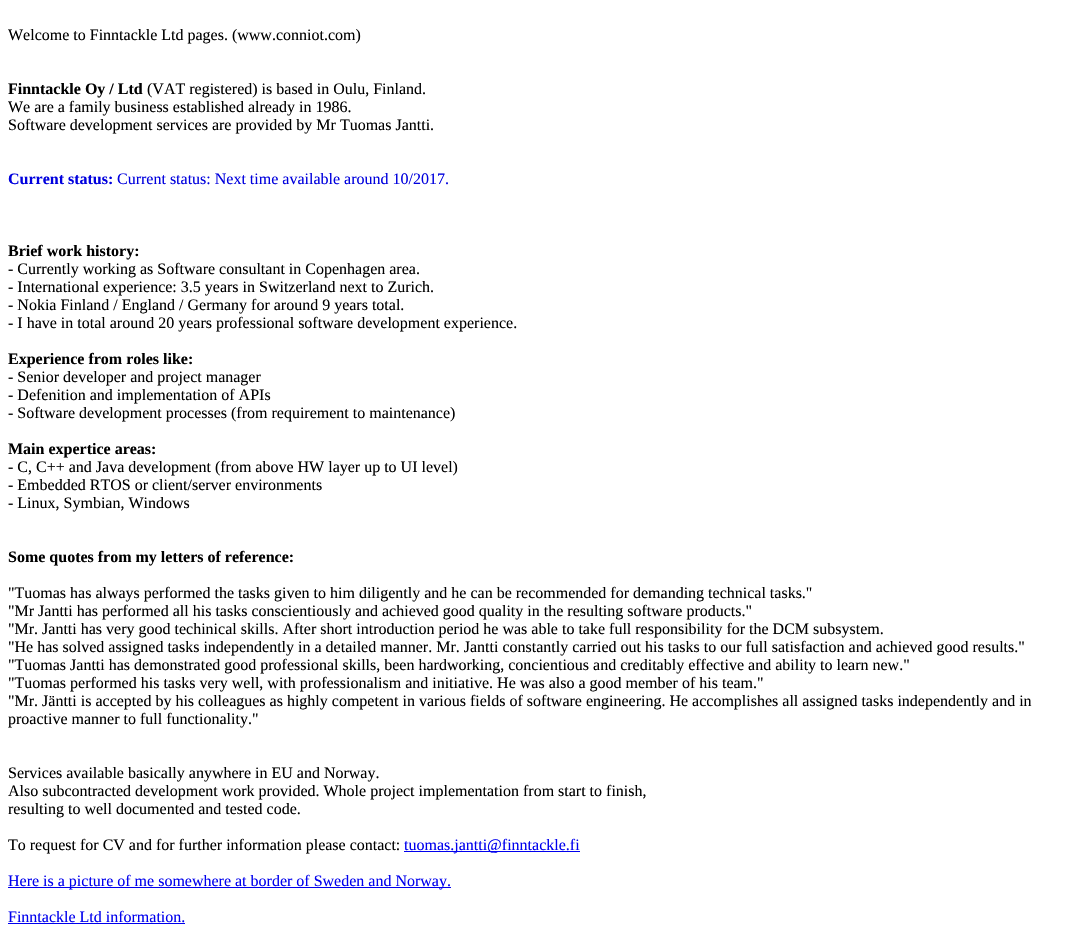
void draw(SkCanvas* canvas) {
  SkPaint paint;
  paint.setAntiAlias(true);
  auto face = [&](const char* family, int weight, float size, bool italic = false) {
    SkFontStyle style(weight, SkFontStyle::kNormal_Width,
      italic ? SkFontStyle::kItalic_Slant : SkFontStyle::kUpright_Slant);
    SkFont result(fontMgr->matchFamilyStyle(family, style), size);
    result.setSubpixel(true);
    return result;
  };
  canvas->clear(0xffffffff);
  {
    const struct { float x, y, w, h; SkColor color; } items[] = {
      {404, 851, 176, 1, 0xff0000ee},
      {8, 887, 443, 1, 0xff0000ee},
      {8, 923, 177, 1, 0xff0000ee},
    };
    for (auto [x, y, w, h, color] : items) {
      paint.setColor(color);
      canvas->drawRect(SkRect::MakeXYWH(x, y, w, h), paint);
    }
  }
  auto f0 = face("Liberation Serif", 400, 16);
  paint.setColor(0xff000000);
  canvas->drawString("Welcome to Finntackle Ltd pages. (www.conniot.com)", 8, 40, f0, paint);
  auto f1 = face("Liberation Serif", 700, 16);
  canvas->drawString("Finntackle Oy / Ltd", 8, 94, f1, paint);
  {
    const struct { const char* s; float x, y; } items[] = {
      {"(VAT registered) is based in Oulu, Finland.", 147, 94},
      {"We are a family business established already in 1986.", 8, 112},
      {"Software development services are provided by Mr Tuomas Jantti.", 8, 130},
    };
    for (auto [s, x, y] : items) {
      canvas->drawString(s, x, y, f0, paint);
    }
  }
  paint.setColor(0xff0000de);
  canvas->drawString("Current status:", 8, 184, f1, paint);
  canvas->drawString("Current status: Next time available around 10/2017.", 117, 184, f0, paint);
  paint.setColor(0xff000000);
  canvas->drawString("Brief work history:", 8, 256, f1, paint);
  {
    const struct { const char* s; float x, y; } items[] = {
      {"- Currently working as Software consultant in Copenhagen area.", 8, 274},
      {"- International experience: 3.5 years in Switzerland next to Zurich.", 8, 292},
      {"- Nokia Finland / England / Germany for around 9 years total.", 8, 310},
      {"- I have in total around 20 years professional software development experience.", 8, 328},
    };
    for (auto [s, x, y] : items) {
      canvas->drawString(s, x, y, f0, paint);
    }
  }
  canvas->drawString("Experience from roles like:", 8, 364, f1, paint);
  {
    const struct { const char* s; float x, y; } items[] = {
      {"- Senior developer and project manager", 8, 382},
      {"- Defenition and implementation of APIs", 8, 400},
      {"- Software development processes (from requirement to maintenance)", 8, 418},
    };
    for (auto [s, x, y] : items) {
      canvas->drawString(s, x, y, f0, paint);
    }
  }
  canvas->drawString("Main expertice areas:", 8, 454, f1, paint);
  {
    const struct { const char* s; float x, y; } items[] = {
      {"- C, C++ and Java development (from above HW layer up to UI level)", 8, 472},
      {"- Embedded RTOS or client/server environments", 8, 490},
      {"- Linux, Symbian, Windows", 8, 508},
    };
    for (auto [s, x, y] : items) {
      canvas->drawString(s, x, y, f0, paint);
    }
  }
  canvas->drawString("Some quotes from my letters of reference:", 8, 562, f1, paint);
  {
    const struct { const char* s; float x, y; } items[] = {
      {"\"Tuomas has always performed the tasks given to him diligently and he can be recommended for demanding technical tasks.\"", 8, 598},
      {"\"Mr Jantti has performed all his tasks conscientiously and achieved good quality in the resulting software products.\"", 8, 616},
      {"\"Mr. Jantti has very good techinical skills. After short introduction period he was able to take full responsibility for the DCM subsystem.", 8, 634},
      {"\"He has solved assigned tasks independently in a detailed manner. Mr. Jantti constantly carried out his tasks to our full satisfaction and achieved good results.\"", 8, 652},
      {"\"Tuomas Jantti has demonstrated good professional skills, been hardworking, concientious and creditably effective and ability to learn new.\"", 8, 670},
      {"\"Tuomas performed his tasks very well, with professionalism and initiative. He was also a good member of his team.\"", 8, 688},
      {"\"Mr. Jäntti is accepted by his colleagues as highly competent in various fields of software engineering. He accomplishes all assigned tasks independently and in", 8, 706},
      {"proactive manner to full functionality.\"", 8, 724},
      {"Services available basically anywhere in EU and Norway.", 8, 778},
      {"Also subcontracted development work provided. Whole project implementation from start to finish,", 8, 796},
      {"resulting to well documented and tested code.", 8, 814},
      {"To request for CV and for further information please contact:", 8, 850},
    };
    for (auto [s, x, y] : items) {
      canvas->drawString(s, x, y, f0, paint);
    }
  }
  paint.setColor(0xff0000ee);
  {
    const struct { const char* s; float x, y; } items[] = {
      {"tuomas.jantti@finntackle.fi", 404, 850},
      {"Here is a picture of me somewhere at border of Sweden and Norway.", 8, 886},
      {"Finntackle Ltd information.", 8, 922},
    };
    for (auto [s, x, y] : items) {
      canvas->drawString(s, x, y, f0, paint);
    }
  }
}
